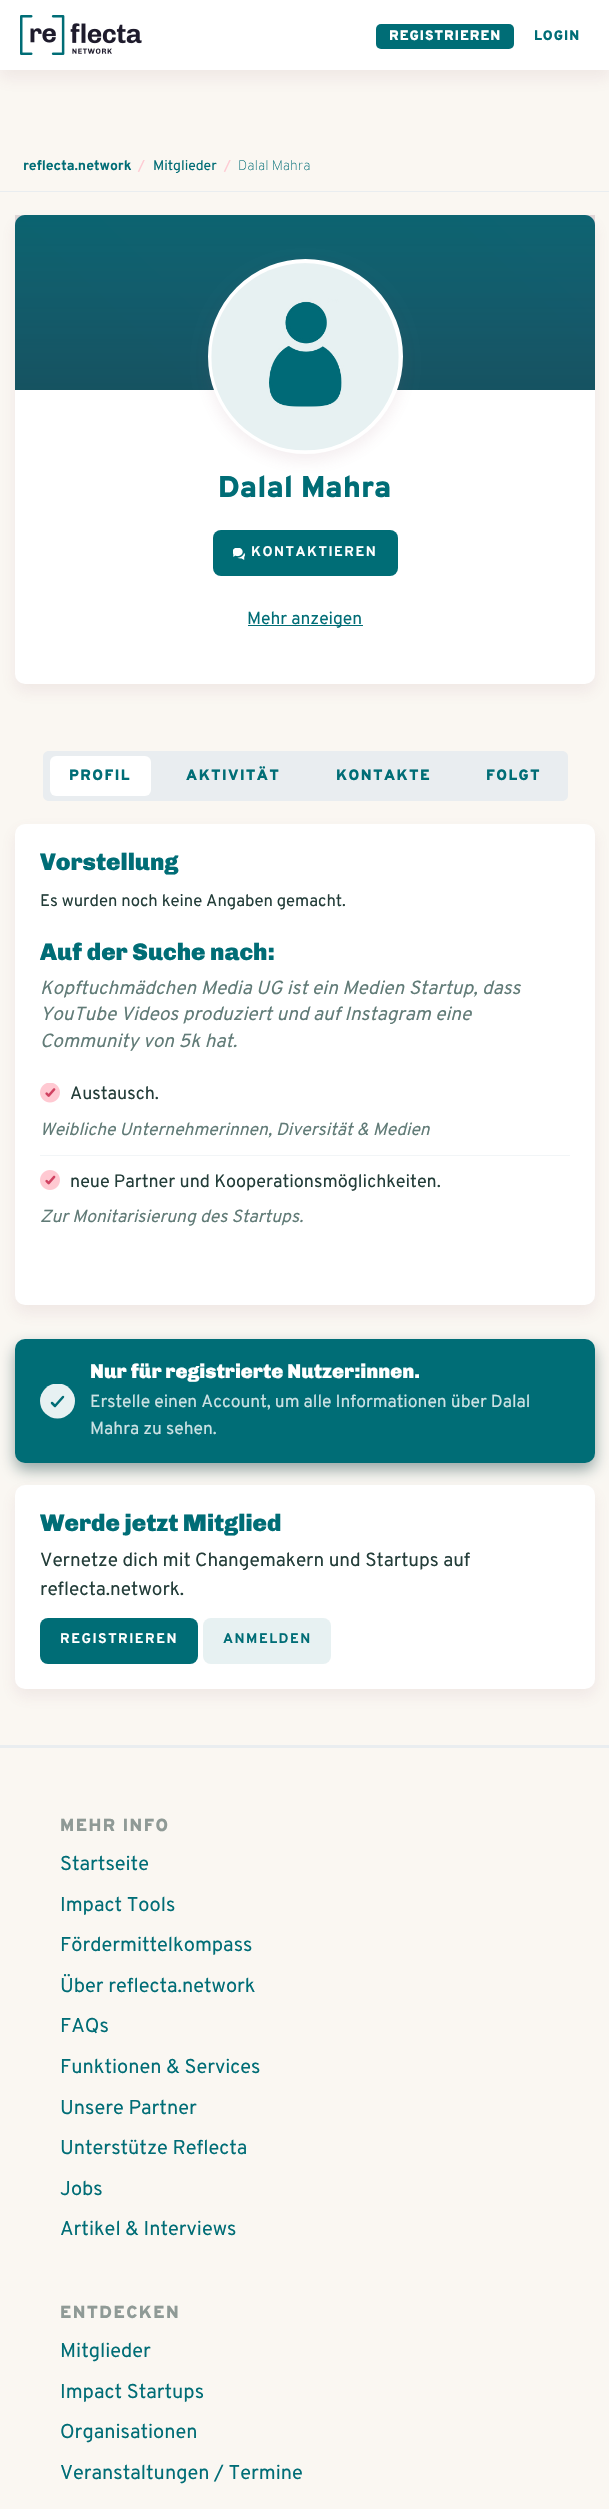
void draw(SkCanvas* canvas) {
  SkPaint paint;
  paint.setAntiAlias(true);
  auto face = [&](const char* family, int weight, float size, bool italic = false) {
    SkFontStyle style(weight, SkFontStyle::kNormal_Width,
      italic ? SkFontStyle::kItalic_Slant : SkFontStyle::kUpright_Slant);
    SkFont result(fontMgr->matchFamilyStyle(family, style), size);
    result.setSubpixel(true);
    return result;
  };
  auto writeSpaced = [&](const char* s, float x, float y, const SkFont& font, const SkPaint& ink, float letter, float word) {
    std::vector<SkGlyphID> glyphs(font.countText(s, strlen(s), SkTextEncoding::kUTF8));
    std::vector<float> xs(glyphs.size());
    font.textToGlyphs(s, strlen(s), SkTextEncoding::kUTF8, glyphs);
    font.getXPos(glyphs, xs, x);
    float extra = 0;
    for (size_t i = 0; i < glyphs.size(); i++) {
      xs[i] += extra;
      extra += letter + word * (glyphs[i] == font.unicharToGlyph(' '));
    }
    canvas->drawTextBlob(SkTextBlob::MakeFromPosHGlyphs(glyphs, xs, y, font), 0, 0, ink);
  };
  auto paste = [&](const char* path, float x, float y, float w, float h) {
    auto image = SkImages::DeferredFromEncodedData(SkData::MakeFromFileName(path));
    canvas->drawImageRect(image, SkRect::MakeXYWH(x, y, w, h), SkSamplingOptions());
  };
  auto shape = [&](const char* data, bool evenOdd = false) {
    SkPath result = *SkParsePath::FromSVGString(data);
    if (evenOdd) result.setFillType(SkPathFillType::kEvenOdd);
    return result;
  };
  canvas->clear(0xfffaf7f2);
  paint.setColor(0x1a975c69);
  paint.setMaskFilter(SkMaskFilter::MakeBlur(kNormal_SkBlurStyle, 7.5f));
  canvas->drawRect(SkRect::MakeXYWH(0, 8, 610, 70), paint);
  paint.setMaskFilter(nullptr);
  paint.setColor(0xffffffff);
  canvas->drawRect(SkRect::MakeXYWH(0, 0, 609, 70), paint);
  paste("img/1.png", 20, 15, 122, 40);
  paint.setColor(0xff006d76);
  canvas->drawRoundRect(SkRect::MakeXYWH(376, 24, 138, 25), 5, 5, paint);
  paint.setColor(0xffe9edf0);
  canvas->drawRect(SkRect::MakeXYWH(0, 191, 609, 1), paint);
  paint.setColor(0x1a975c69);
  paint.setMaskFilter(SkMaskFilter::MakeBlur(kNormal_SkBlurStyle, 7.5f));
  canvas->drawRoundRect(SkRect::MakeXYWH(15, 223, 580, 468), 10, 10, paint);
  paint.setMaskFilter(nullptr);
  paint.setColor(0xffffffff);
  canvas->drawRoundRect(SkRect::MakeXYWH(15, 215, 580, 469), 10, 10, paint);
  paint.setColor(0xff006d76);
  canvas->drawPath(shape("M25 215H585C590.5 215 595 219.5 595 225V390H15V225C15 219.5 19.5 215 25 215Z"), paint);
  paint.setColor(0x0d37233c);
  canvas->drawRect(SkRect::MakeXYWH(15, 215, 580, 175), paint);
  {
    const SkColor colors[] = {0x0d5e245f, 0x0d37233c};
    const float stops[] = {0, 1};
    const SkPoint ends[] = {{489, 112}, {121, 493}};
    paint.setShader(SkGradientShader::MakeLinear(ends, colors, stops, 2, SkTileMode::kClamp));
    paint.setAlpha(255);
  }
  canvas->drawRect(SkRect::MakeXYWH(15, 215, 580, 175), paint);
  {
    const SkColor colors[] = {0x0d5e245f, 0x4d37233c};
    const float stops[] = {0, 1};
    const SkPoint ends[] = {{305, 215}, {305, 390}};
    paint.setShader(SkGradientShader::MakeLinear(ends, colors, stops, 2, SkTileMode::kClamp));
    paint.setAlpha(255);
  }
  canvas->drawRect(SkRect::MakeXYWH(15, 215, 580, 175), paint);
  paint.setShader(nullptr);
  paint.setColor(0x1a975c69);
  paint.setMaskFilter(SkMaskFilter::MakeBlur(kNormal_SkBlurStyle, 7.5f));
  canvas->drawRoundRect(SkRect::MakeXYWH(208, 266, 195, 195), 97.5f, 97.5f, paint);
  paint.setMaskFilter(nullptr);
  paint.setColor(0xffffffff);
  canvas->drawCircle(305.5f, 356.5f, 95.5f, paint);
  paint.setStroke(true);
  paint.setStrokeWidth(4);
  canvas->drawCircle(305.5f, 356.5f, 95.5f, paint);
  paste("img/2.png", 211, 263, 188, 188);
  paint.setStroke(false);
  paint.setColor(0xff006d76);
  canvas->drawRoundRect(SkRect::MakeXYWH(213, 530, 185, 46), 8, 8, paint);
  paste("img/3.png", 233, 548, 12, 12);
  canvas->drawRect(SkRect::MakeXYWH(248, 625, 115, 1), paint);
  paint.setColor(0xffe9edf0);
  canvas->drawPath(shape("M49 751H159V801H49C45.5 801 43 798.5 43 795V757C43 753.5 45.5 751 49 751Z"), paint);
  paint.setColor(0xffffffff);
  canvas->drawRoundRect(SkRect::MakeXYWH(50, 756, 101, 40), 6, 6, paint);
  paint.setColor(0xffe9edf0);
  canvas->drawRect(SkRect::MakeXYWH(159, 751, 299, 50), paint);
  canvas->drawPath(shape("M458 751H562C565.5 751 568 753.5 568 757V795C568 798.5 565.5 801 562 801H458Z"), paint);
  paint.setColor(0x1a975c69);
  paint.setMaskFilter(SkMaskFilter::MakeBlur(kNormal_SkBlurStyle, 7.5f));
  canvas->drawRoundRect(SkRect::MakeXYWH(15, 831, 580, 482), 10, 10, paint);
  paint.setMaskFilter(nullptr);
  paint.setColor(0xffffffff);
  canvas->drawRoundRect(SkRect::MakeXYWH(15, 824, 580, 481), 10, 10, paint);
  paint.setColor(0xfff2f5f7);
  canvas->drawRect(SkRect::MakeXYWH(40, 1155, 530, 1), paint);
  paste("img/4.png", 40, 1083, 20, 20);
  paste("img/5.png", 40, 1170, 20, 20);
  paint.setColor(0x66002d31);
  paint.setMaskFilter(SkMaskFilter::MakeBlur(kNormal_SkBlurStyle, 7.5f));
  canvas->drawRoundRect(SkRect::MakeXYWH(15, 1346, 580, 124), 10, 10, paint);
  paint.setMaskFilter(nullptr);
  paint.setColor(0xff006d76);
  canvas->drawRoundRect(SkRect::MakeXYWH(15, 1339, 580, 124), 10, 10, paint);
  canvas->save();
  canvas->clipRect(SkRect::MakeXYWH(40, 1384, 35, 35));
  paint.setColor(0xffe7f1f2);
  canvas->drawCircle(57.5f, 1401, 17.5f, paint);
  canvas->restore();
  paint.setStroke(true);
  paint.setStrokeWidth(2.5f);
  paint.setStrokeCap(SkPaint::kRound_Cap);
  paint.setStrokeJoin(SkPaint::kRound_Join);
  paint.setColor(0xff006d76);
  canvas->drawPath(shape("M52 1403L55 1406L63 1397"), paint);
  paint.setStroke(false);
  paint.setColor(0x1a975c69);
  paint.setMaskFilter(SkMaskFilter::MakeBlur(kNormal_SkBlurStyle, 7.5f));
  canvas->drawRoundRect(SkRect::MakeXYWH(15, 1493, 580, 203), 10, 10, paint);
  paint.setMaskFilter(nullptr);
  paint.setColor(0xffffffff);
  canvas->drawRoundRect(SkRect::MakeXYWH(15, 1485, 580, 204), 10, 10, paint);
  paint.setColor(0xff006d76);
  canvas->drawRoundRect(SkRect::MakeXYWH(40, 1618, 158, 46), 8, 8, paint);
  paint.setColor(0xffe7f1f2);
  canvas->drawRoundRect(SkRect::MakeXYWH(203, 1618, 128, 46), 8, 8, paint);
  paint.setColor(0xffe9edf0);
  canvas->drawRect(SkRect::MakeXYWH(0, 1745, 609, 3), paint);
  auto f0 = face("Overpass", 900, 13.75f);
  paint.setColor(0xffffffff);
  writeSpaced("REGISTRIEREN", 389, 40, f0, paint, 1, 0);
  paint.setColor(0xff006d76);
  writeSpaced("LOGIN", 534, 40, f0, paint, 1, 0);
  auto f1 = face("Overpass", 700, 14);
  canvas->drawString("reflecta.network", 23, 170, f1, paint);
  auto f2 = face("Overpass", 400, 14);
  paint.setColor(0xffffc9d2);
  canvas->drawString("/", 138, 170, f2, paint);
  paint.setColor(0xff006d76);
  canvas->drawString("Mitglieder", 153, 170, f2, paint);
  paint.setColor(0xffffc9d2);
  canvas->drawString("/", 224, 170, f2, paint);
  auto f3 = face("Overpass", 100, 14);
  paint.setColor(0xff006d76);
  canvas->drawString("Dalal Mahra", 238, 170, f3, paint);
  auto f4 = face("Overpass", 900, 30);
  canvas->drawString("Dalal Mahra", 218, 497, f4, paint);
  paint.setColor(0xffffffff);
  writeSpaced("KONTAKTIEREN", 251, 556, f1, paint, 1.5f, 0);
  auto f5 = face("Overpass", 400, 17.5f);
  paint.setColor(0xff006d76);
  canvas->drawString("Mehr anzeigen", 247, 624, f5, paint);
  auto f6 = face("Overpass", 900, 15);
  {
    const struct { const char* s; float x, y; } items[] = {
      {"PROFIL", 69, 780},
      {"AKTIVITÄT", 186, 780},
      {"KONTAKTE", 336, 780},
      {"FOLGT", 486, 780},
    };
    for (auto [s, x, y] : items) {
      writeSpaced(s, x, y, f6, paint, 1.5f, 0);
    }
  }
  auto f7 = face("Chivo", 900, 24);
  canvas->drawString("Vorstellung", 40, 870, f7, paint);
  auto f8 = face("Overpass", 400, 16.7f);
  paint.setColor(0xff233d39);
  canvas->drawString("Es wurden noch keine Angaben gemacht.", 40, 906, f8, paint);
  paint.setColor(0xff006d76);
  canvas->drawString("Auf der Suche nach:", 40, 960, f7, paint);
  auto f9 = face("Overpass", 400, 19, true);
  paint.setColor(0xff617b77);
  {
    const struct { const char* s; float x, y; } items[] = {
      {"Kopftuchmädchen Media UG ist ein Medien Startup, dass", 40, 994},
      {"YouTube Videos produziert und auf Instagram eine", 40, 1020},
      {"Community von 5k hat.", 40, 1047},
    };
    for (auto [s, x, y] : items) {
      canvas->drawString(s, x, y, f9, paint);
    }
  }
  auto f10 = face("Overpass", 400, 18);
  paint.setColor(0xff233d39);
  canvas->drawString("Austausch.", 70, 1099, f10, paint);
  auto f11 = face("Overpass", 400, 17.5f, true);
  paint.setColor(0xff617b77);
  canvas->drawString("Weibliche Unternehmerinnen, Diversität & Medien", 40, 1135, f11, paint);
  paint.setColor(0xff233d39);
  canvas->drawString("neue Partner und Kooperationsmöglichkeiten.", 70, 1187, f10, paint);
  paint.setColor(0xff617b77);
  canvas->drawString("Zur Monitarisierung des Startups.", 40, 1222, f11, paint);
  auto f12 = face("Chivo", 900, 20);
  paint.setColor(0xffffffff);
  canvas->drawString("Nur für registrierte Nutzer:innen.", 90, 1378, f12, paint);
  paint.setColor(0xffcce2e4);
  canvas->drawString("Erstelle einen Account, um alle Informationen über Dalal", 90, 1407, f5, paint);
  canvas->drawString("Mahra zu sehen.", 90, 1434, f5, paint);
  paint.setColor(0xff006d76);
  canvas->drawString("Werde jetzt Mitglied", 40, 1531, f7, paint);
  auto f13 = face("Overpass", 400, 19);
  paint.setColor(0xff233d39);
  canvas->drawString("Vernetze dich mit Changemakern und Startups auf", 40, 1566, f13, paint);
  canvas->drawString("reflecta.network.", 40, 1595, f13, paint);
  paint.setColor(0xffffffff);
  writeSpaced("REGISTRIEREN", 60, 1643, f1, paint, 1.5f, 0);
  paint.setColor(0xff006d76);
  writeSpaced("ANMELDEN", 223, 1643, f1, paint, 1.5f, 0);
  auto f14 = face("Overpass", 900, 17.5f);
  paint.setColor(0xff8f9a96);
  writeSpaced("MEHR INFO", 60, 1831, f14, paint, 1.5f, 0);
  auto f15 = face("Overpass", 400, 20);
  paint.setColor(0xff006d76);
  {
    const struct { const char* s; float x, y; } items[] = {
      {"Startseite", 60, 1870},
      {"Impact Tools", 60, 1911},
      {"Fördermittelkompass", 60, 1951},
      {"Über reflecta.network", 60, 1992},
      {"FAQs", 60, 2032},
      {"Funktionen & Services", 60, 2073},
      {"Unsere Partner", 60, 2114},
      {"Unterstütze Reflecta", 60, 2154},
      {"Jobs", 60, 2195},
      {"Artikel & Interviews", 60, 2235},
    };
    for (auto [s, x, y] : items) {
      canvas->drawString(s, x, y, f15, paint);
    }
  }
  paint.setColor(0xff8f9a96);
  writeSpaced("ENTDECKEN", 60, 2318, f14, paint, 1.5f, 0);
  paint.setColor(0xff006d76);
  {
    const struct { const char* s; float x, y; } items[] = {
      {"Mitglieder", 60, 2357},
      {"Impact Startups", 60, 2398},
      {"Organisationen", 60, 2438},
      {"Veranstaltungen / Termine", 60, 2479},
    };
    for (auto [s, x, y] : items) {
      canvas->drawString(s, x, y, f15, paint);
    }
  }
}
